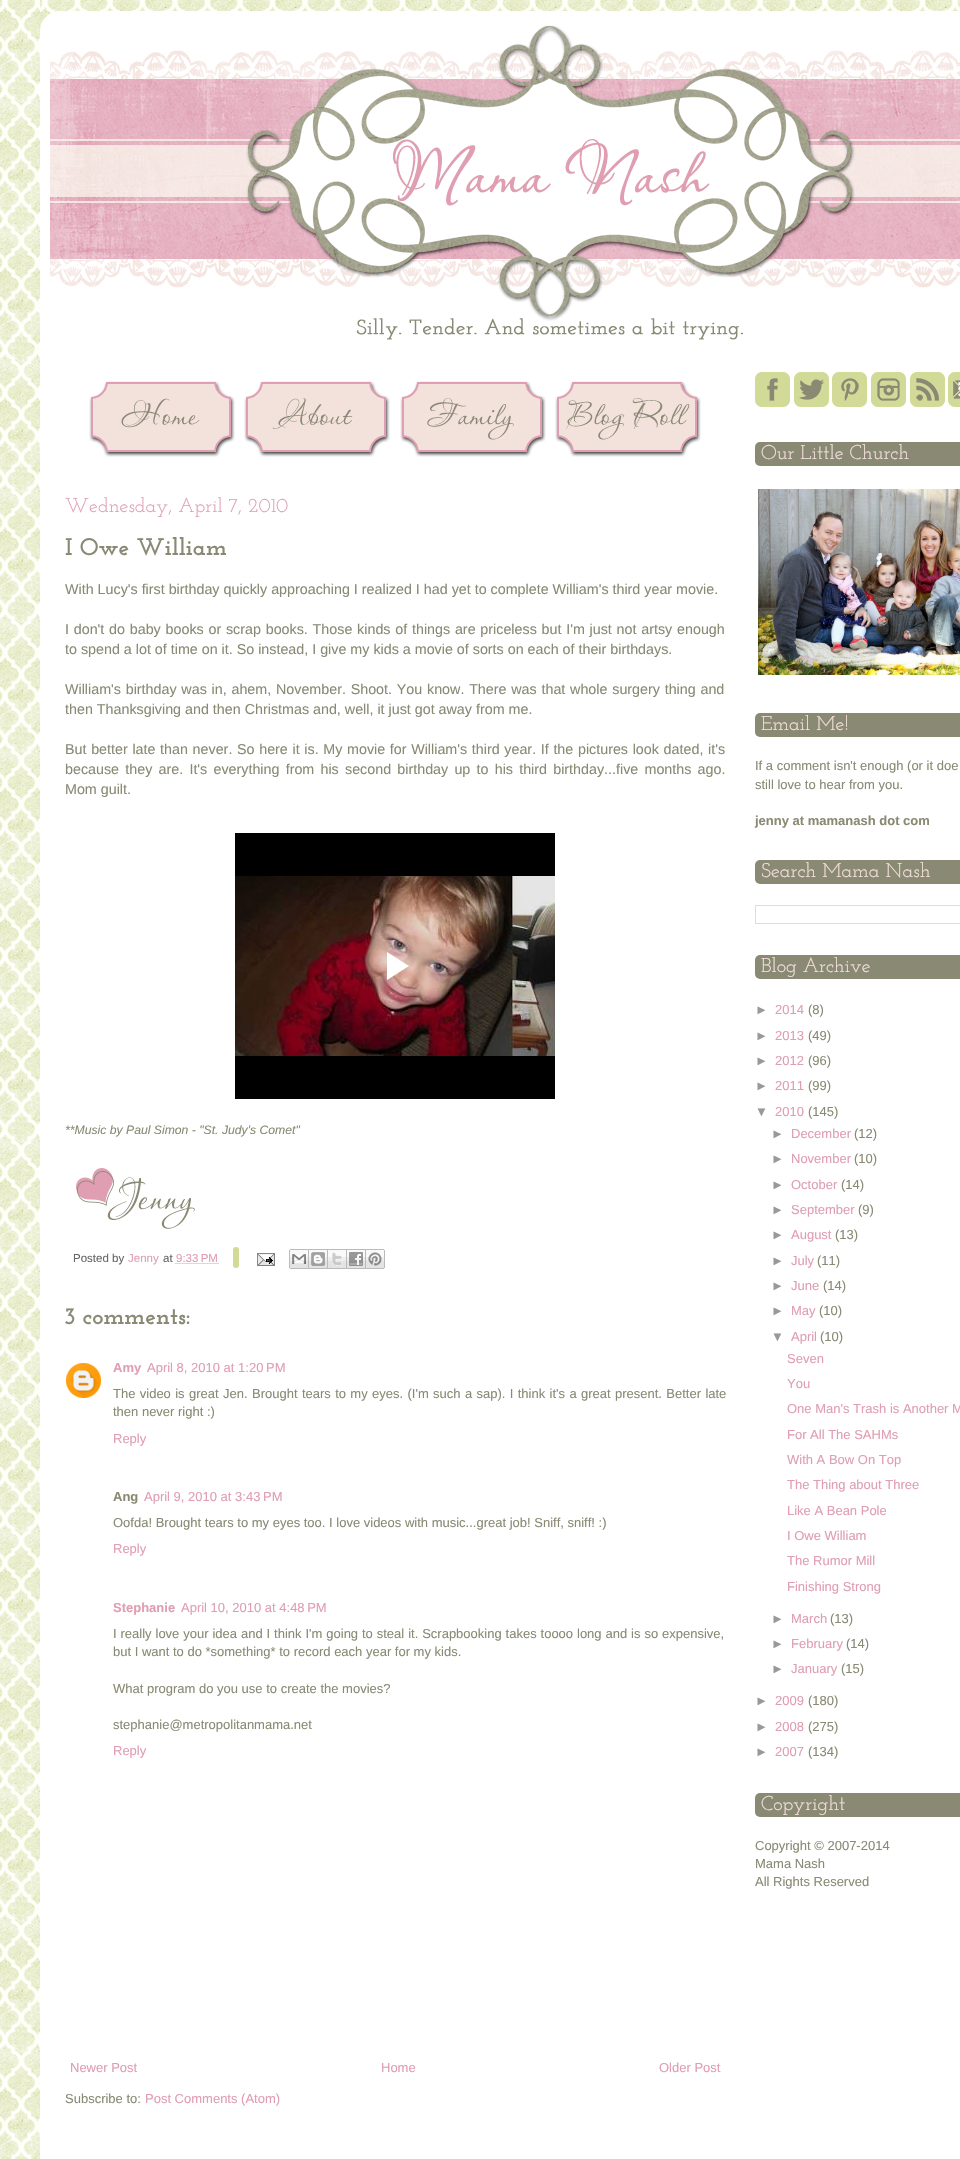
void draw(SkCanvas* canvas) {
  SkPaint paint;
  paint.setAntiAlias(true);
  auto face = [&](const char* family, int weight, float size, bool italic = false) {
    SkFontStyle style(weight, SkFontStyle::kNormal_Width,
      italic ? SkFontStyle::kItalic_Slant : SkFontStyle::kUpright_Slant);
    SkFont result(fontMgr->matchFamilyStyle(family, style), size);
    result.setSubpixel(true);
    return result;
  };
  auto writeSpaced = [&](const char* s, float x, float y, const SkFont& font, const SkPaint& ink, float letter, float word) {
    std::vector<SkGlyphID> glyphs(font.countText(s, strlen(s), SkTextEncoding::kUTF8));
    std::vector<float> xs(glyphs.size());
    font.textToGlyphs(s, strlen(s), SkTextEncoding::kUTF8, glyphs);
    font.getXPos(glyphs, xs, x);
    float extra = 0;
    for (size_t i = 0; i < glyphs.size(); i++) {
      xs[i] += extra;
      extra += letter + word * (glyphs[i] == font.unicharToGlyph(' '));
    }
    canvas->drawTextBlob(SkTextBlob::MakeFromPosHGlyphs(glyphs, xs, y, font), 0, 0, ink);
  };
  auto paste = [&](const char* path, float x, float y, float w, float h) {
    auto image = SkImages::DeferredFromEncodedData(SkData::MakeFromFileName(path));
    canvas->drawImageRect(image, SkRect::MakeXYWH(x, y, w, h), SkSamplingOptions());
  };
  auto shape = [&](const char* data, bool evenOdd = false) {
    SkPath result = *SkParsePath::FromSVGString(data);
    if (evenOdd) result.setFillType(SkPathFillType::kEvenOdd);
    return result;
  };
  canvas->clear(0xffffffff);
  paste("img/1.png", 0, 0, 40, 2159);
  paste("img/2.png", 40, 0, 920, 31);
  paint.setColor(0xffffffff);
  canvas->drawPath(shape("M60 11H960C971 11 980 20 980 31V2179H40V31C40 20 49 11 60 11Z"), paint);
  paste("img/3.png", 50, 25, 910, 315);
  paste("img/4.png", 89, 381, 146, 76);
  paste("img/5.png", 244, 381, 146, 76);
  paste("img/6.png", 400, 381, 146, 76);
  paste("img/7.png", 555, 381, 146, 76);
  paste("img/8.png", 235, 833, 320, 266);
  paste("img/9.png", 76, 1168, 119, 61);
  paint.setStroke(true);
  paint.setStrokeWidth(1);
  paint.setColor(0xffdf9eb1);
  paint.setPathEffect(SkDashPathEffect::Make({{1, 1}}, 0));
  canvas->drawPath(shape("M175.5 1263.5H218.5"), paint);
  paint.setPathEffect(nullptr);
  paint.setStroke(false);
  paint.setColor(0xffd1da96);
  canvas->drawRoundRect(SkRect::MakeXYWH(233, 1247, 6, 21), 3, 3, paint);
  paste("img/10.png", 257, 1253, 18, 13);
  paste("img/11.png", 289, 1249, 20, 20);
  paste("img/12.png", 309, 1249, 19, 20);
  paste("img/13.png", 328, 1249, 19, 20);
  paste("img/14.png", 347, 1249, 19, 20);
  paste("img/15.png", 366, 1249, 19, 20);
  paste("img/16.png", 66, 1363, 35, 35);
  paste("img/17.png", 755, 372, 35, 35);
  paste("img/18.png", 794, 372, 35, 35);
  paste("img/19.png", 832, 372, 35, 35);
  paste("img/20.png", 871, 372, 35, 35);
  paste("img/21.png", 910, 372, 35, 35);
  paste("img/22.png", 948, 372, 12, 35);
  paint.setColor(0xff898974);
  canvas->drawRoundRect(SkRect::MakeXYWH(755, 442, 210, 24), 5, 5, paint);
  paste("img/23.png", 758, 489, 202, 186);
  canvas->drawRoundRect(SkRect::MakeXYWH(755, 713, 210, 24), 5, 5, paint);
  canvas->drawRoundRect(SkRect::MakeXYWH(755, 860, 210, 24), 5, 5, paint);
  paint.setStroke(true);
  paint.setColor(0xffdddddd);
  canvas->drawRect(SkRect::MakeXYWH(755.5f, 905.5f, 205, 18), paint);
  paint.setStroke(false);
  paint.setColor(0xff898974);
  canvas->drawRoundRect(SkRect::MakeXYWH(755, 955, 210, 24), 5, 5, paint);
  canvas->drawRoundRect(SkRect::MakeXYWH(755, 1793, 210, 24), 5, 5, paint);
  auto f0 = face("Josefin Slab", 400, 20);
  paint.setColor(0xffdf9eb1);
  canvas->drawString("Wednesday, April 7, 2010", 65, 512, f0, paint);
  auto f1 = face("Josefin Slab", 700, 24);
  paint.setColor(0xff898974);
  canvas->drawString("I Owe William", 65, 555, f1, paint);
  auto f2 = face("Liberation Sans", 400, 14.3f);
  canvas->drawString("With Lucy's first birthday quickly approaching I realized I had yet to complete William's third year movie.", 65, 594, f2, paint);
  writeSpaced("I don't do baby books or scrap books. Those kinds of things are priceless but I'm just not artsy enough", 65, 634, f2, paint, 0, 0.8f);
  canvas->drawString("to spend a lot of time on it. So instead, I give my kids a movie of sorts on each of their birthdays.", 65, 654, f2, paint);
  writeSpaced("William's birthday was in, ahem, November. Shoot. You know. There was that whole surgery thing and", 65, 694, f2, paint, 0, 0.8f);
  canvas->drawString("then Thanksgiving and then Christmas and, well, it just got away from me.", 65, 714, f2, paint);
  writeSpaced("But better late than never. So here it is. My movie for William's third year. If the pictures look dated, it's", 65, 754, f2, paint, 0, 0.7f);
  writeSpaced("because they are. It's everything from his second birthday up to his third birthday...five months ago.", 65, 774, f2, paint, 0, 2.25f);
  canvas->drawString("Mom guilt.", 65, 794, f2, paint);
  auto f3 = face("Liberation Sans", 400, 12.2f, true);
  canvas->drawString("**Music by Paul Simon - \"St. Judy's Comet\"", 65, 1134, f3, paint);
  auto f4 = face("Liberation Sans", 400, 11.5f);
  paint.setColor(0xff666666);
  canvas->drawString("Posted by", 73, 1262, f4, paint);
  paint.setColor(0xffdf9eb1);
  canvas->drawString("Jenny", 128, 1262, f4, paint);
  paint.setColor(0xff666666);
  canvas->drawString("at", 163, 1262, f4, paint);
  paint.setColor(0xffdf9eb1);
  canvas->drawString("9:33 PM", 176, 1262, f4, paint);
  paint.setColor(0xff898974);
  canvas->drawString("3 comments:", 65, 1324, f1, paint);
  auto f5 = face("Liberation Sans", 700, 13);
  paint.setColor(0xffdf9eb1);
  canvas->drawString("Amy", 113, 1372, f5, paint);
  auto f6 = face("Liberation Sans", 400, 13);
  canvas->drawString("April 8, 2010 at 1:20 PM", 147, 1372, f6, paint);
  paint.setColor(0xff898974);
  writeSpaced("The video is great Jen.", 113, 1398, f6, paint, 0, 0.75f);
  writeSpaced("Brought tears to my eyes. (I'm such a sap). I think it's a great present. Better late", 252, 1398, f6, paint, 0, 0.75f);
  canvas->drawString("then never right :)", 113, 1416, f6, paint);
  paint.setColor(0xffdf9eb1);
  canvas->drawString("Reply", 113, 1443, f6, paint);
  paint.setColor(0xff898974);
  canvas->drawString("Ang", 113, 1501, f5, paint);
  paint.setColor(0xffdf9eb1);
  canvas->drawString("April 9, 2010 at 3:43 PM", 144, 1501, f6, paint);
  paint.setColor(0xff898974);
  canvas->drawString("Oofda! Brought tears to my eyes too. I love videos with music...great job! Sniff, sniff! :)", 113, 1527, f6, paint);
  paint.setColor(0xffdf9eb1);
  canvas->drawString("Reply", 113, 1553, f6, paint);
  canvas->drawString("Stephanie", 113, 1612, f5, paint);
  canvas->drawString("April 10, 2010 at 4:48 PM", 181, 1612, f6, paint);
  paint.setColor(0xff898974);
  writeSpaced("I really love your idea and I think I'm going to steal it. Scrapbooking takes toooo long and is so expensive,", 113, 1638, f6, paint, 0, 0.3f);
  {
    const struct { const char* s; float x, y; } items[] = {
      {"but I want to do *something* to record each year for my kids.", 113, 1656},
      {"What program do you use to create the movies?", 113, 1693},
      {"stephanie@metropolitanmama.net", 113, 1729},
    };
    for (auto [s, x, y] : items) {
      canvas->drawString(s, x, y, f6, paint);
    }
  }
  paint.setColor(0xffdf9eb1);
  {
    const struct { const char* s; float x, y; } items[] = {
      {"Reply", 113, 1755},
      {"Newer Post", 70, 2072},
      {"Home", 381, 2072},
      {"Older Post", 659, 2072},
    };
    for (auto [s, x, y] : items) {
      canvas->drawString(s, x, y, f6, paint);
    }
  }
  paint.setColor(0xff898974);
  canvas->drawString("Subscribe to:", 65, 2103, f6, paint);
  paint.setColor(0xffdf9eb1);
  canvas->drawString("Post Comments (Atom)", 145, 2103, f6, paint);
  paint.setColor(0xfff3e1dc);
  canvas->drawString("Our Little Church", 761, 459, f0, paint);
  canvas->drawString("Email Me!", 761, 730, f0, paint);
  paint.setColor(0xff898974);
  canvas->drawString("If a comment isn't enough (or it doe", 755, 770, f6, paint);
  canvas->drawString("still love to hear from you.", 755, 789, f6, paint);
  canvas->drawString("jenny at mamanash dot com", 755, 825, f5, paint);
  paint.setColor(0xfff3e1dc);
  canvas->drawString("Search Mama Nash", 761, 877, f0, paint);
  canvas->drawString("Blog Archive", 761, 972, f0, paint);
  paint.setColor(0xff999999);
  canvas->drawString("►", 755, 1014, f6, paint);
  paint.setColor(0xffdf9eb1);
  canvas->drawString("2014", 775, 1014, f6, paint);
  paint.setColor(0xff898974);
  canvas->drawString("(8)", 808, 1014, f6, paint);
  paint.setColor(0xff999999);
  canvas->drawString("►", 755, 1040, f6, paint);
  paint.setColor(0xffdf9eb1);
  canvas->drawString("2013", 775, 1040, f6, paint);
  paint.setColor(0xff898974);
  canvas->drawString("(49)", 808, 1040, f6, paint);
  paint.setColor(0xff999999);
  canvas->drawString("►", 755, 1065, f6, paint);
  paint.setColor(0xffdf9eb1);
  canvas->drawString("2012", 775, 1065, f6, paint);
  paint.setColor(0xff898974);
  canvas->drawString("(96)", 808, 1065, f6, paint);
  paint.setColor(0xff999999);
  canvas->drawString("►", 755, 1090, f6, paint);
  paint.setColor(0xffdf9eb1);
  canvas->drawString("2011", 775, 1090, f6, paint);
  paint.setColor(0xff898974);
  canvas->drawString("(99)", 808, 1090, f6, paint);
  paint.setColor(0xff999999);
  canvas->drawString("▼", 755, 1116, f6, paint);
  paint.setColor(0xffdf9eb1);
  canvas->drawString("2010", 775, 1116, f6, paint);
  paint.setColor(0xff898974);
  canvas->drawString("(145)", 808, 1116, f6, paint);
  paint.setColor(0xff999999);
  canvas->drawString("►", 771, 1138, f6, paint);
  paint.setColor(0xffdf9eb1);
  canvas->drawString("December", 791, 1138, f6, paint);
  paint.setColor(0xff898974);
  canvas->drawString("(12)", 854, 1138, f6, paint);
  paint.setColor(0xff999999);
  canvas->drawString("►", 771, 1163, f6, paint);
  paint.setColor(0xffdf9eb1);
  canvas->drawString("November", 791, 1163, f6, paint);
  paint.setColor(0xff898974);
  canvas->drawString("(10)", 854, 1163, f6, paint);
  paint.setColor(0xff999999);
  canvas->drawString("►", 771, 1189, f6, paint);
  paint.setColor(0xffdf9eb1);
  canvas->drawString("October", 791, 1189, f6, paint);
  paint.setColor(0xff898974);
  canvas->drawString("(14)", 841, 1189, f6, paint);
  paint.setColor(0xff999999);
  canvas->drawString("►", 771, 1214, f6, paint);
  paint.setColor(0xffdf9eb1);
  canvas->drawString("September", 791, 1214, f6, paint);
  paint.setColor(0xff898974);
  canvas->drawString("(9)", 858, 1214, f6, paint);
  paint.setColor(0xff999999);
  canvas->drawString("►", 771, 1239, f6, paint);
  paint.setColor(0xffdf9eb1);
  canvas->drawString("August", 791, 1239, f6, paint);
  paint.setColor(0xff898974);
  canvas->drawString("(13)", 835, 1239, f6, paint);
  paint.setColor(0xff999999);
  canvas->drawString("►", 771, 1265, f6, paint);
  paint.setColor(0xffdf9eb1);
  canvas->drawString("July", 791, 1265, f6, paint);
  paint.setColor(0xff898974);
  canvas->drawString("(11)", 817, 1265, f6, paint);
  paint.setColor(0xff999999);
  canvas->drawString("►", 771, 1290, f6, paint);
  paint.setColor(0xffdf9eb1);
  canvas->drawString("June", 791, 1290, f6, paint);
  paint.setColor(0xff898974);
  canvas->drawString("(14)", 823, 1290, f6, paint);
  paint.setColor(0xff999999);
  canvas->drawString("►", 771, 1315, f6, paint);
  paint.setColor(0xffdf9eb1);
  canvas->drawString("May", 791, 1315, f6, paint);
  paint.setColor(0xff898974);
  canvas->drawString("(10)", 819, 1315, f6, paint);
  paint.setColor(0xff999999);
  canvas->drawString("▼", 771, 1341, f6, paint);
  paint.setColor(0xffdf9eb1);
  canvas->drawString("April", 791, 1341, f6, paint);
  paint.setColor(0xff898974);
  canvas->drawString("(10)", 820, 1341, f6, paint);
  paint.setColor(0xffdf9eb1);
  {
    const struct { const char* s; float x, y; } items[] = {
      {"Seven", 787, 1363},
      {"You", 787, 1388},
      {"One Man's Trash is Another M", 787, 1413},
      {"For All The SAHMs", 787, 1439},
      {"With A Bow On Top", 787, 1464},
      {"The Thing about Three", 787, 1489},
      {"Like A Bean Pole", 787, 1515},
      {"I Owe William", 787, 1540},
      {"The Rumor Mill", 787, 1565},
      {"Finishing Strong", 787, 1591},
    };
    for (auto [s, x, y] : items) {
      canvas->drawString(s, x, y, f6, paint);
    }
  }
  paint.setColor(0xff999999);
  canvas->drawString("►", 771, 1623, f6, paint);
  paint.setColor(0xffdf9eb1);
  canvas->drawString("March", 791, 1623, f6, paint);
  paint.setColor(0xff898974);
  canvas->drawString("(13)", 830, 1623, f6, paint);
  paint.setColor(0xff999999);
  canvas->drawString("►", 771, 1648, f6, paint);
  paint.setColor(0xffdf9eb1);
  canvas->drawString("February", 791, 1648, f6, paint);
  paint.setColor(0xff898974);
  canvas->drawString("(14)", 846, 1648, f6, paint);
  paint.setColor(0xff999999);
  canvas->drawString("►", 771, 1673, f6, paint);
  paint.setColor(0xffdf9eb1);
  canvas->drawString("January", 791, 1673, f6, paint);
  paint.setColor(0xff898974);
  canvas->drawString("(15)", 841, 1673, f6, paint);
  paint.setColor(0xff999999);
  canvas->drawString("►", 755, 1705, f6, paint);
  paint.setColor(0xffdf9eb1);
  canvas->drawString("2009", 775, 1705, f6, paint);
  paint.setColor(0xff898974);
  canvas->drawString("(180)", 808, 1705, f6, paint);
  paint.setColor(0xff999999);
  canvas->drawString("►", 755, 1731, f6, paint);
  paint.setColor(0xffdf9eb1);
  canvas->drawString("2008", 775, 1731, f6, paint);
  paint.setColor(0xff898974);
  canvas->drawString("(275)", 808, 1731, f6, paint);
  paint.setColor(0xff999999);
  canvas->drawString("►", 755, 1756, f6, paint);
  paint.setColor(0xffdf9eb1);
  canvas->drawString("2007", 775, 1756, f6, paint);
  paint.setColor(0xff898974);
  canvas->drawString("(134)", 808, 1756, f6, paint);
  paint.setColor(0xfff3e1dc);
  canvas->drawString("Copyright", 761, 1810, f0, paint);
  paint.setColor(0xff898974);
  {
    const struct { const char* s; float x, y; } items[] = {
      {"Copyright © 2007-2014", 755, 1850},
      {"Mama Nash", 755, 1868},
      {"All Rights Reserved", 755, 1886},
    };
    for (auto [s, x, y] : items) {
      canvas->drawString(s, x, y, f6, paint);
    }
  }
}
